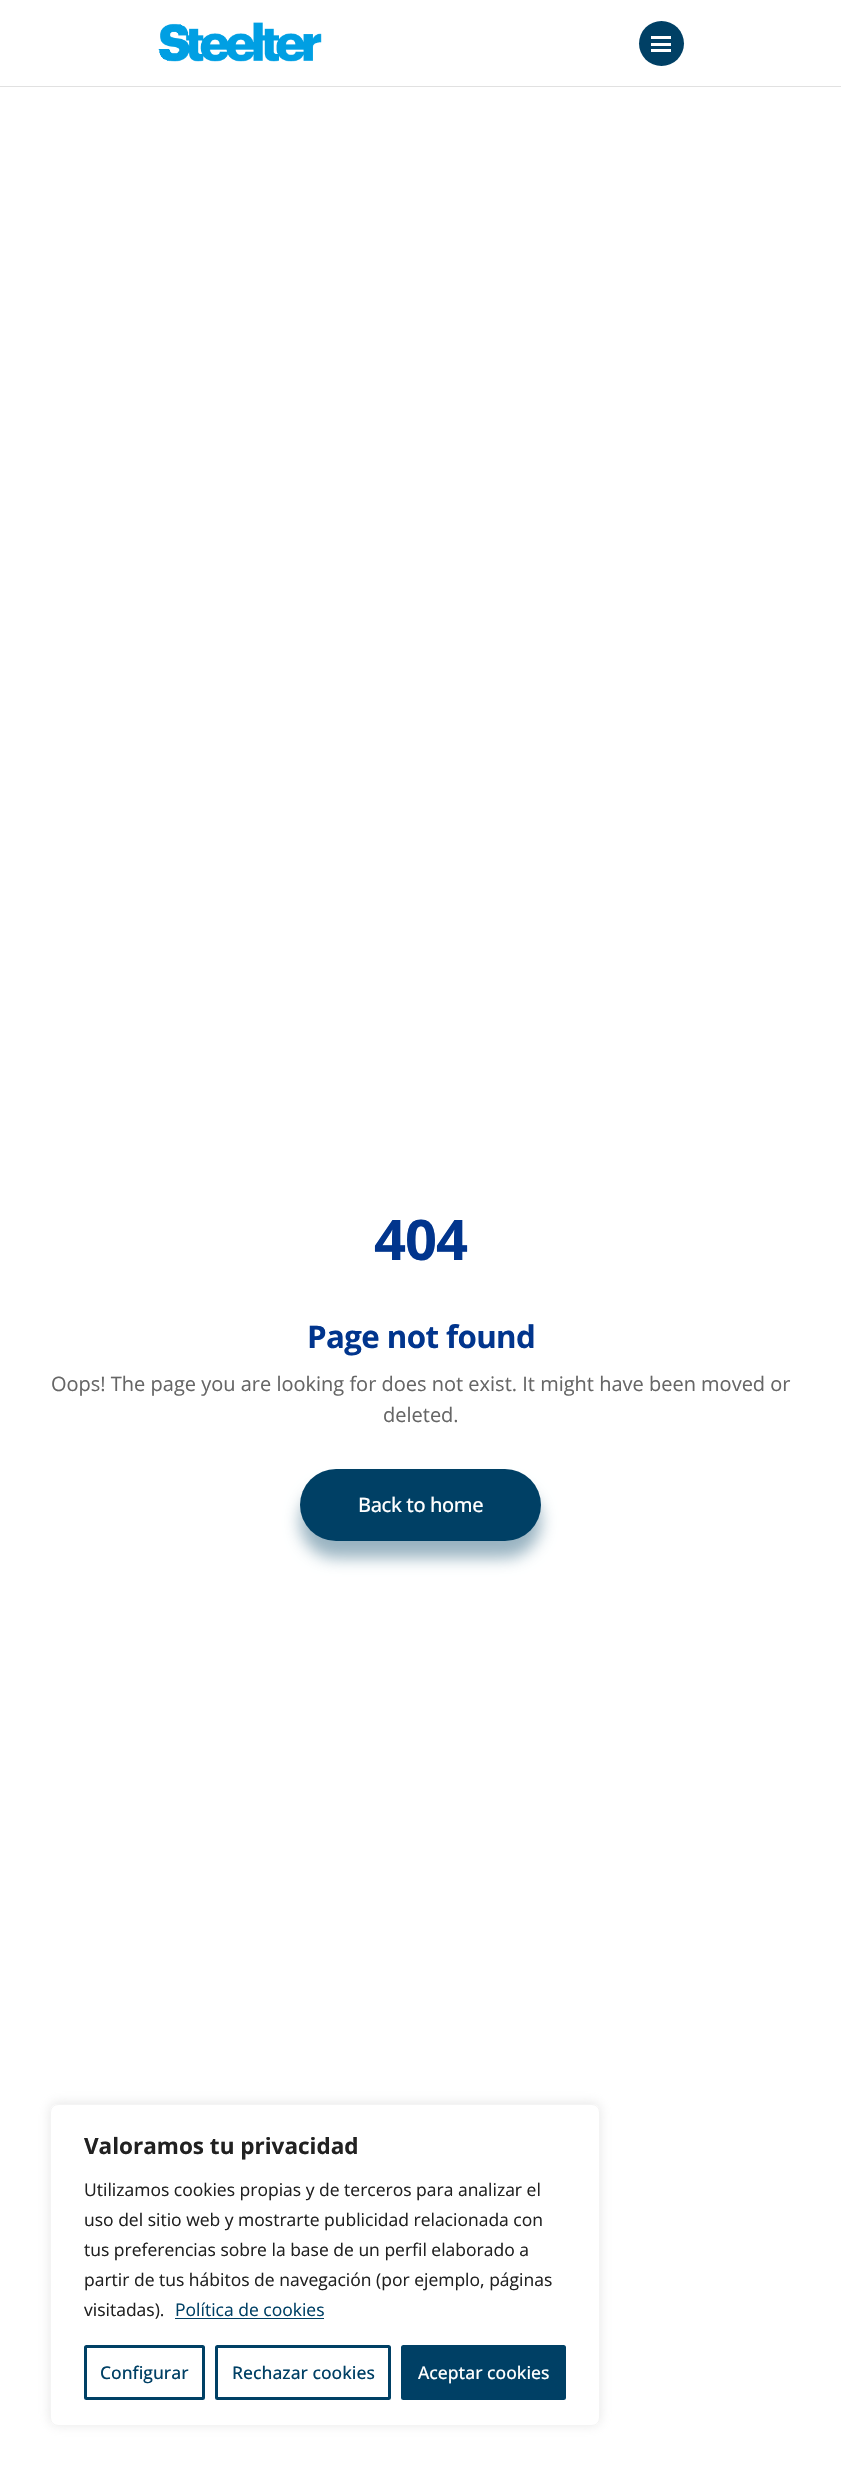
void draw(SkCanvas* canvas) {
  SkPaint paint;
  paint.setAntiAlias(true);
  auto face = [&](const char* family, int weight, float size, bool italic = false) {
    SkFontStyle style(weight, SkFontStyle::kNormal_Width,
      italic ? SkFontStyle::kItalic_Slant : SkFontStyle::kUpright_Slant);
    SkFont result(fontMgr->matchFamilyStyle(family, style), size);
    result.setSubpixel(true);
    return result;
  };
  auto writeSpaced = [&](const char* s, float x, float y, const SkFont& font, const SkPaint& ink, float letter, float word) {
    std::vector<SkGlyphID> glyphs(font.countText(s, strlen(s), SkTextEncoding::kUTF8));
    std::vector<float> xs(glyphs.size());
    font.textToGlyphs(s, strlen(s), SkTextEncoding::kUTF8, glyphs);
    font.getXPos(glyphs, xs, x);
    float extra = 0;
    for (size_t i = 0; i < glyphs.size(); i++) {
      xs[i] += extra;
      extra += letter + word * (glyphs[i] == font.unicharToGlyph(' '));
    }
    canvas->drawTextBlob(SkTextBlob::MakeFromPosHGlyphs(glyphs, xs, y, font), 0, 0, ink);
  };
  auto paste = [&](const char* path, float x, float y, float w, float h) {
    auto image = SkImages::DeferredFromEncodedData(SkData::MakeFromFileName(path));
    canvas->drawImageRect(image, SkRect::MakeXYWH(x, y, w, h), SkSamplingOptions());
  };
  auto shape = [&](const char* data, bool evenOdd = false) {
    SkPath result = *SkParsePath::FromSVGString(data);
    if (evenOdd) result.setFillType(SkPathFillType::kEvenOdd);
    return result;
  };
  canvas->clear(0xffffffff);
  paint.setColor(0xffe1e1e1);
  canvas->drawRect(SkRect::MakeXYWH(0, 86, 841, 1), paint);
  paste("img/1.png", 158, 22, 164, 40);
  paint.setColor(0xff004065);
  canvas->drawCircle(661.5f, 43.5f, 22.5f, paint);
  {
    const struct { float x, y, w, h; SkColor color; } items[] = {
      {651, 36, 20, 3, 0xffffffff},
      {651, 43, 20, 3, 0xffffffff},
      {651, 49, 20, 3, 0xffffffff},
    };
    for (auto [x, y, w, h, color] : items) {
      paint.setColor(color);
      canvas->drawRect(SkRect::MakeXYWH(x, y, w, h), paint);
    }
  }
  paint.setColor(0x66004065);
  paint.setMaskFilter(SkMaskFilter::MakeBlur(kNormal_SkBlurStyle, 8));
  canvas->drawRoundRect(SkRect::MakeXYWH(300, 1485, 241, 73), 36.5f, 36.5f, paint);
  paint.setMaskFilter(nullptr);
  paint.setColor(0xff004065);
  canvas->drawRoundRect(SkRect::MakeXYWH(300, 1469, 241, 72), 36, 36, paint);
  canvas->save();
  canvas->clipPath(shape("M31 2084H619V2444H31ZM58 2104H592C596.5 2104 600 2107.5 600 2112V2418C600 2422.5 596.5 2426 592 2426H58C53.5 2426 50 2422.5 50 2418V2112C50 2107.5 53.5 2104 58 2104Z", true), true);
  paint.setColor(0x4dacabab);
  paint.setMaskFilter(SkMaskFilter::MakeBlur(kNormal_SkBlurStyle, 6));
  canvas->drawRoundRect(SkRect::MakeXYWH(50, 2103, 550, 322), 8, 8, paint);
  paint.setMaskFilter(nullptr);
  canvas->restore();
  paint.setStroke(true);
  paint.setStrokeWidth(1);
  paint.setColor(0xfff4f4f4);
  canvas->drawRoundRect(SkRect::MakeXYWH(50.5f, 2104.5f, 549, 321), 7.5f, 7.5f, paint);
  paint.setStroke(false);
  paint.setColor(0xff004065);
  canvas->drawRect(SkRect::MakeXYWH(175, 2318, 149, 1), paint);
  paint.setStroke(true);
  paint.setStrokeWidth(3);
  canvas->drawRoundRect(SkRect::MakeXYWH(85.5f, 2346.5f, 118, 52), 1, 1, paint);
  canvas->drawRoundRect(SkRect::MakeXYWH(216.5f, 2346.5f, 173, 52), 1, 1, paint);
  paint.setStroke(false);
  canvas->drawRoundRect(SkRect::MakeXYWH(402.5f, 2346.5f, 162, 52), 1, 1, paint);
  paint.setStroke(true);
  canvas->drawRoundRect(SkRect::MakeXYWH(402.5f, 2346.5f, 162, 52), 1, 1, paint);
  auto f0 = face("Open Sans", 700, 56);
  paint.setStroke(false);
  paint.setColor(0xff01358d);
  writeSpaced("404", 374, 1260, f0, paint, -1, 0);
  auto f1 = face("Open Sans", 700, 31.25f);
  writeSpaced("Page not found", 307, 1348, f1, paint, -0.6f, 0);
  auto f2 = face("Open Sans", 400, 20);
  paint.setColor(0xff666666);
  canvas->drawString("Oops! The page you are looking for does not exist. It might have been moved or", 51, 1391, f2, paint);
  canvas->drawString("deleted.", 383, 1422, f2, paint);
  auto f3 = face("Open Sans", 500, 20);
  paint.setColor(0xffffffff);
  writeSpaced("Back to home", 358, 1512, f3, paint, -0.4f, 0);
  auto f4 = face("Open Sans", 700, 22.5f);
  paint.setColor(0xff212121);
  canvas->drawString("Valoramos tu privacidad", 84, 2154, f4, paint);
  auto f5 = face("Open Sans", 400, 17.5f);
  {
    const struct { const char* s; float x, y; } items[] = {
      {"Utilizamos cookies propias y de terceros para analizar el", 84, 2196},
      {"uso del sitio web y mostrarte publicidad relacionada con", 84, 2226},
      {"tus preferencias sobre la base de un perfil elaborado a", 84, 2256},
      {"partir de tus hábitos de navegación (por ejemplo, páginas", 84, 2286},
      {"visitadas).", 84, 2316},
    };
    for (auto [s, x, y] : items) {
      canvas->drawString(s, x, y, f5, paint);
    }
  }
  paint.setColor(0xff004065);
  canvas->drawString("Política de cookies", 175, 2316, f5, paint);
  auto f6 = face("Open Sans", 500, 17.5f);
  canvas->drawString("Configurar", 100, 2379, f6, paint);
  canvas->drawString("Rechazar cookies", 232, 2379, f6, paint);
  paint.setColor(0xffffffff);
  canvas->drawString("Aceptar cookies", 418, 2379, f6, paint);
}
